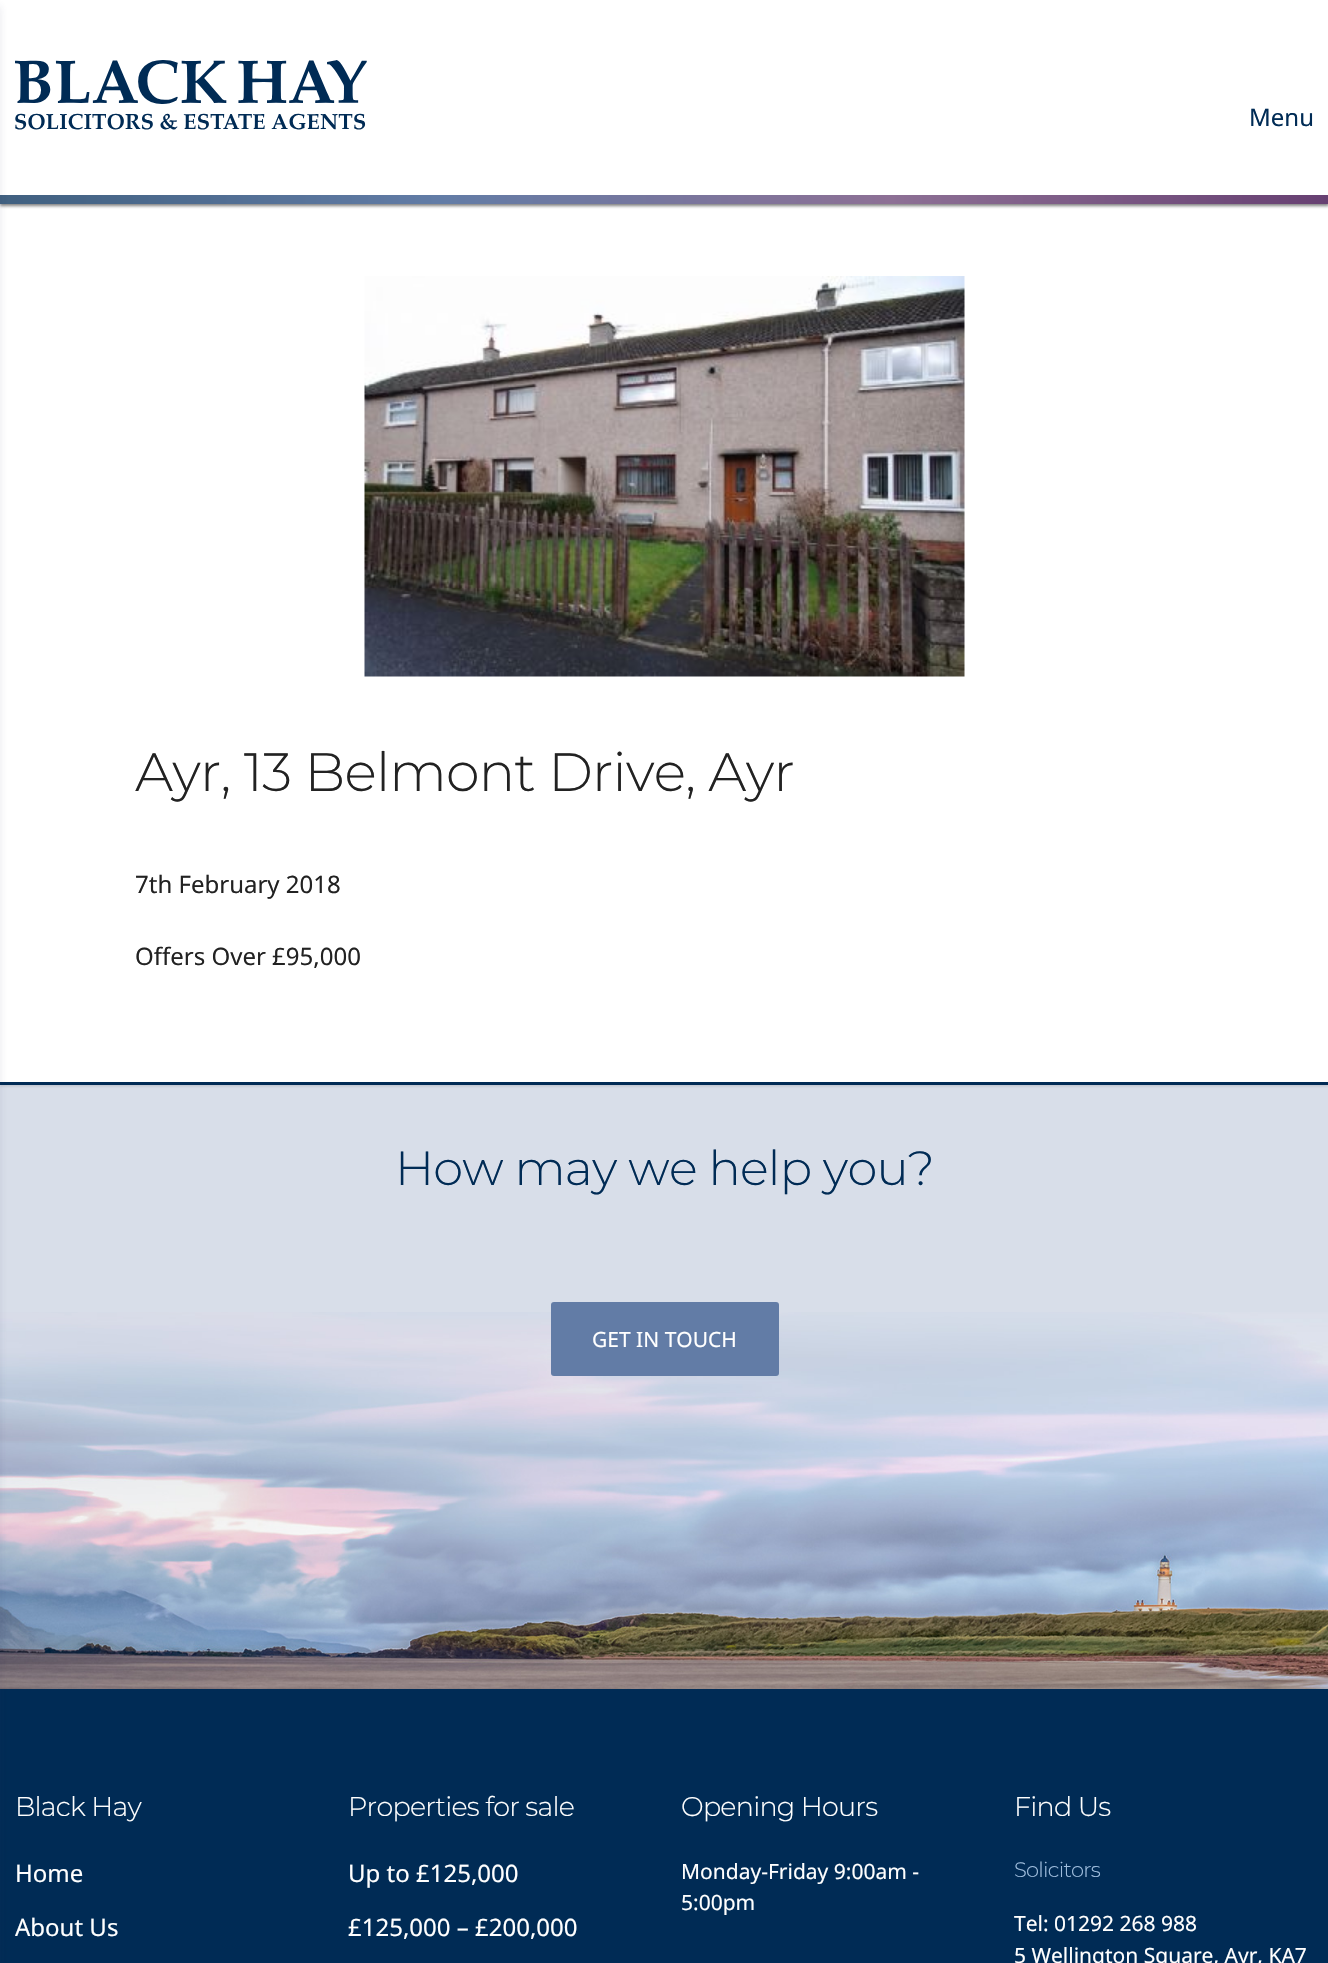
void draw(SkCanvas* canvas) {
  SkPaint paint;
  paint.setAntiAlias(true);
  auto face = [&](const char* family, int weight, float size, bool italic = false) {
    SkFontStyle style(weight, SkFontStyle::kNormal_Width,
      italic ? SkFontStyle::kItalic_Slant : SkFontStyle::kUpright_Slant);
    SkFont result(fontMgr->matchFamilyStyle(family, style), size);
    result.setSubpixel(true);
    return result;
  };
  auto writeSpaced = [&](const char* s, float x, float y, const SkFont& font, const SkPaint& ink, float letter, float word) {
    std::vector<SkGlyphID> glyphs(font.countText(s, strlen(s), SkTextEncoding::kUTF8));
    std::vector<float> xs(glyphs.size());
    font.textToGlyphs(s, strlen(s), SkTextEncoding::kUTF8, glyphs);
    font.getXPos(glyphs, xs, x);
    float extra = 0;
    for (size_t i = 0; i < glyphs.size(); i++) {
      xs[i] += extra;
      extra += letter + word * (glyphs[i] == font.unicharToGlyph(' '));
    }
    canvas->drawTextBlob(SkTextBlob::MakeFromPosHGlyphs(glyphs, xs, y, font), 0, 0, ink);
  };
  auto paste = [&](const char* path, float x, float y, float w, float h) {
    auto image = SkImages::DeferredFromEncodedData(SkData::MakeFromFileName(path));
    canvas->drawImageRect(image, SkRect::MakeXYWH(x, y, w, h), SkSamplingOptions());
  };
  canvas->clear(0xffd8dee9);
  paint.setColor(0x26000000);
  paint.setMaskFilter(SkMaskFilter::MakeBlur(kNormal_SkBlurStyle, 1.5f));
  canvas->drawRect(SkRect::MakeXYWH(0, 206, 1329, 880), paint);
  paint.setMaskFilter(nullptr);
  paint.setColor(0xffffffff);
  canvas->drawRect(SkRect::MakeXYWH(0, 204, 1328, 878), paint);
  paint.setColor(0x80000000);
  paint.setMaskFilter(SkMaskFilter::MakeBlur(kNormal_SkBlurStyle, 1.5f));
  canvas->drawRect(SkRect::MakeXYWH(0, 2, 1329, 204), paint);
  paint.setMaskFilter(nullptr);
  paint.setColor(0xffffffff);
  canvas->drawRect(SkRect::MakeXYWH(0, 0, 1328, 195), paint);
  {
    const SkColor colors[] = {0xff406080, 0xff627ca6, 0xff8d7095, 0xff674072};
    const float stops[] = {0, 0.33f, 0.67f, 1};
    const SkPoint ends[] = {{0, 200}, {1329, 199}};
    paint.setShader(SkGradientShader::MakeLinear(ends, colors, stops, 4, SkTileMode::kClamp));
    paint.setAlpha(255);
  }
  canvas->drawRect(SkRect::MakeXYWH(0, 195, 1328, 9), paint);
  paint.setShader(nullptr);
  paint.setColor(0xff002b55);
  canvas->drawRect(SkRect::MakeXYWH(0, 1082, 1328, 3), paint);
  paste("img/3.png", 0, 1312, 1328, 377);
  canvas->drawRect(SkRect::MakeXYWH(0, 1689, 1328, 274), paint);
  paint.setColor(0x1c32325d);
  paint.setMaskFilter(SkMaskFilter::MakeBlur(kNormal_SkBlurStyle, 4.5f));
  canvas->drawRect(SkRect::MakeXYWH(-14, 6, 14, 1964), paint);
  paint.setMaskFilter(nullptr);
  paste("img/1.png", 15, 60, 352, 70);
  paste("img/2.png", 364, 276, 601, 401);
  paint.setColor(0xff627ca6);
  canvas->drawRoundRect(SkRect::MakeXYWH(551, 1302, 228, 74), 3, 3, paint);
  auto f0 = face("Noto Sans", 400, 24);
  paint.setColor(0xff002b55);
  canvas->drawString("Menu", 1249, 126, f0, paint);
  auto f1 = face("Montserrat", 300, 54);
  paint.setColor(0xff222222);
  writeSpaced("Ayr, 13 Belmont Drive, Ayr", 135, 791, f1, paint, -0.75f, 0);
  canvas->drawString("7th February 2018", 135, 893, f0, paint);
  canvas->drawString("Offers Over £95,000", 135, 965, f0, paint);
  auto f2 = face("Montserrat", 300, 48);
  paint.setColor(0xff002b55);
  writeSpaced("How may we help you?", 395, 1185, f2, paint, -0.75f, 0);
  auto f3 = face("Noto Sans", 400, 21);
  paint.setColor(0xffffffff);
  canvas->drawString("GET IN TOUCH", 592, 1347, f3, paint);
  auto f4 = face("Montserrat", 300, 27);
  writeSpaced("Black Hay", 15, 1816, f4, paint, -0.75f, 0);
  canvas->drawString("Home", 15, 1882, f0, paint);
  canvas->drawString("About Us", 15, 1936, f0, paint);
  writeSpaced("Properties for sale", 348, 1816, f4, paint, -0.75f, 0);
  canvas->drawString("Up to £125,000", 348, 1882, f0, paint);
  canvas->drawString("£125,000 – £200,000", 348, 1936, f0, paint);
  writeSpaced("Opening Hours", 681, 1816, f4, paint, -0.75f, 0);
  canvas->drawString("Monday-Friday 9:00am -", 681, 1879, f3, paint);
  canvas->drawString("5:00pm", 681, 1910, f3, paint);
  writeSpaced("Find Us", 1014, 1816, f4, paint, -0.75f, 0);
  auto f5 = face("Montserrat", 300, 21);
  paint.setColor(0xff9fbddd);
  writeSpaced("Solicitors", 1014, 1877, f5, paint, -0.75f, 0);
  paint.setColor(0xffffffff);
  canvas->drawString("Tel: 01292 268 988", 1014, 1931, f3, paint);
  canvas->drawString("5 Wellington Square, Ayr, KA7", 1014, 1963, f3, paint);
}
